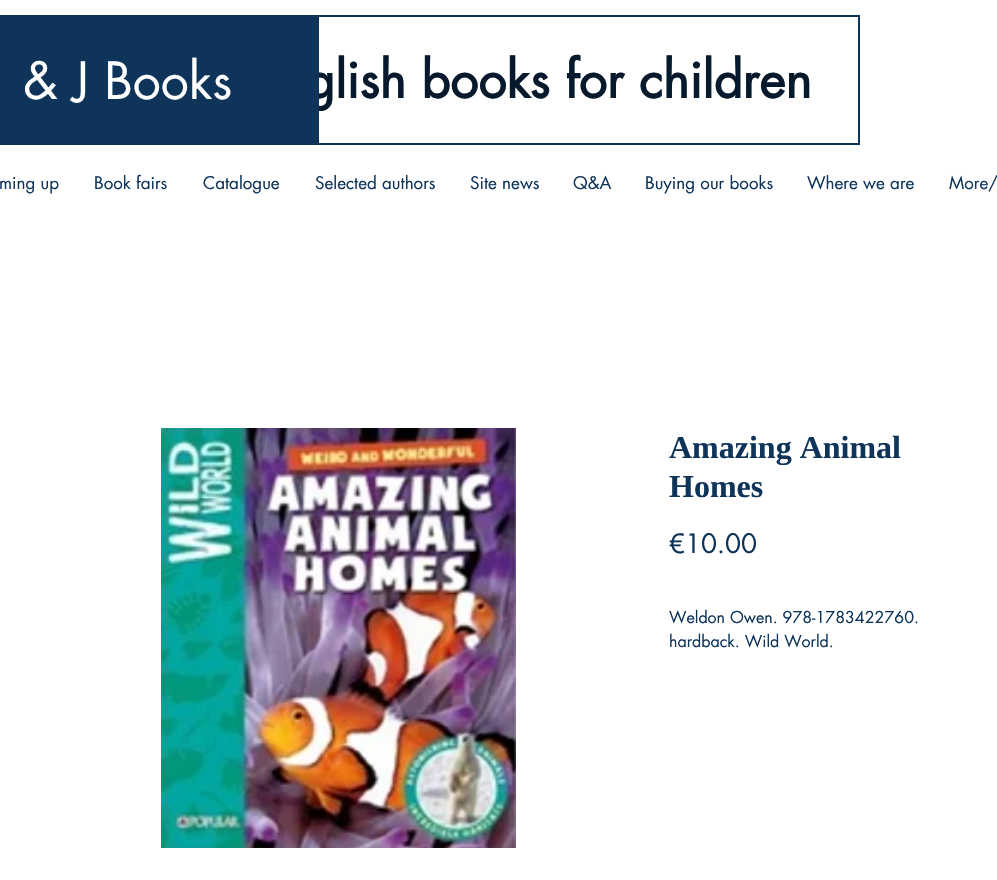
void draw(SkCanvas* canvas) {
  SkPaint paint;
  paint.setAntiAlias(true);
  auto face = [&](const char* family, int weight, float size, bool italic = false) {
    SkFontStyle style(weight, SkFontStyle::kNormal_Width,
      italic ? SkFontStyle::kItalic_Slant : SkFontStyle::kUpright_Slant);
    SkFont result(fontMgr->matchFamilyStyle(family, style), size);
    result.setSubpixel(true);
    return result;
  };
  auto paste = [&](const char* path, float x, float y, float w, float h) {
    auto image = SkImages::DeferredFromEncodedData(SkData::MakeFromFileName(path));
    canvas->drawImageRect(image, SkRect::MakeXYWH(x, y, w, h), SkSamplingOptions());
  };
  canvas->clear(0xffffffff);
  paint.setStroke(true);
  paint.setStrokeWidth(2);
  paint.setColor(0xff0e345a);
  canvas->drawRect(SkRect::MakeXYWH(205, 16, 654, 128), paint);
  paste("img/1.png", 161, 428, 355, 420);
  auto f0 = face("futura", 700, 50);
  paint.setStroke(false);
  paint.setColor(0xff071a2d);
  canvas->drawString("glish books for children", 306, 98, f0, paint);
  paint.setColor(0xff0e345a);
  canvas->drawRect(SkRect::MakeXYWH(0, 15, 319, 130), paint);
  auto f1 = face("futura", 400, 50);
  paint.setColor(0xffffffff);
  canvas->drawString("& J Books", 23, 99, f1, paint);
  auto f2 = face("futura", 400, 17);
  paint.setColor(0xff0e345a);
  {
    const struct { const char* s; float x, y; } items[] = {
      {"ming up", -1, 189},
      {"Book fairs", 94, 189},
      {"Catalogue", 203, 189},
      {"Selected authors", 315, 189},
      {"Site news", 470, 189},
      {"Q&A", 573, 189},
      {"Buying our books", 645, 189},
      {"Where we are", 807, 189},
      {"More/", 949, 189},
    };
    for (auto [s, x, y] : items) {
      canvas->drawString(s, x, y, f2, paint);
    }
  }
  auto f3 = face("Liberation Serif", 700, 32);
  canvas->drawString("Amazing Animal", 669, 458, f3, paint);
  canvas->drawString("Homes", 669, 497, f3, paint);
  auto f4 = face("futura", 400, 26);
  canvas->drawString("€10.00", 669, 553, f4, paint);
  auto f5 = face("futura", 400, 16);
  canvas->drawString("Weldon Owen. 978-1783422760.", 669, 623, f5, paint);
  canvas->drawString("hardback. Wild World.", 669, 647, f5, paint);
}
